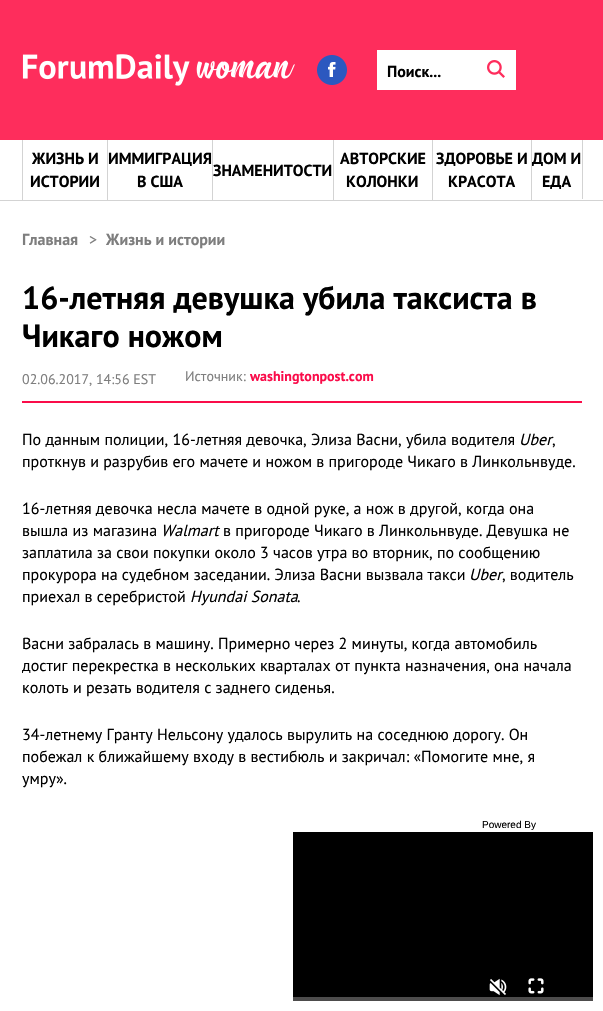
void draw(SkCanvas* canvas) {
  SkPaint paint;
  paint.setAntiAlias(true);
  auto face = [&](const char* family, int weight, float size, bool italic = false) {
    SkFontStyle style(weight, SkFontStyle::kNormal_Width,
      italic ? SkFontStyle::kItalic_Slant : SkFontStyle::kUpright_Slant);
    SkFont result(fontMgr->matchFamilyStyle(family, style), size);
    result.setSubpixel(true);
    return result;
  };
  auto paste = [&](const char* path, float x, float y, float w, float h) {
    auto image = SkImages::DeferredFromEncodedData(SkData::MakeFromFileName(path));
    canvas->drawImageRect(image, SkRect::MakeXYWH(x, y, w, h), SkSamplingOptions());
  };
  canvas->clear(0xffffffff);
  paint.setColor(0xfffe2d5c);
  canvas->drawRect(SkRect::MakeXYWH(0, 0, 603, 140), paint);
  paste("img/1.png", 22, 54, 273, 32);
  paste("img/2.png", 317, 55, 30, 30);
  paint.setColor(0xffffffff);
  canvas->drawRect(SkRect::MakeXYWH(377, 50, 139, 40), paint);
  paste("img/3.png", 487, 60, 18, 18);
  {
    const struct { float x, y, w, h; SkColor color; } items[] = {
      {0, 200, 603, 1, 0xffd3d3d3},
      {22, 140, 1, 60, 0xffd3d3d3},
      {107, 140, 1, 60, 0xffd3d3d3},
      {212, 140, 1, 60, 0xffd3d3d3},
      {333, 140, 1, 60, 0xffd3d3d3},
      {432, 140, 1, 60, 0xffd3d3d3},
      {582, 140, 1, 60, 0xffd3d3d3},
      {582, 199, 1, 1, 0xffffffff},
      {531, 140, 1, 60, 0xffd3d3d3},
      {22, 401, 560, 2, 0xfffa0d4a},
      {293, 832, 300, 165, 0xff000000},
    };
    for (auto [x, y, w, h, color] : items) {
      paint.setColor(color);
      canvas->drawRect(SkRect::MakeXYWH(x, y, w, h), paint);
    }
  }
  paste("img/4.png", 489, 978, 18, 18);
  paste("img/5.png", 528, 978, 16, 16);
  paint.setColor(0xff4d4c4c);
  canvas->drawRect(SkRect::MakeXYWH(293, 997, 300, 4), paint);
  auto f0 = face("PT Sans", 700, 16);
  paint.setColor(0xff000000);
  {
    const struct { const char* s; float x, y; } items[] = {
      {"Поиск...", 387, 77},
      {"ЖИЗНЬ И", 32, 164},
      {"ИСТОРИИ", 30, 187},
      {"ИММИГРАЦИЯ", 108, 164},
      {"В США", 137, 187},
      {"ЗНАМЕНИТОСТИ", 213, 176},
      {"АВТОРСКИЕ", 340, 164},
      {"КОЛОНКИ", 346, 187},
      {"ЗДОРОВЬЕ И", 436, 164},
      {"КРАСОТА", 448, 187},
      {"ДОМ И", 532, 164},
      {"ЕДА", 542, 187},
    };
    for (auto [s, x, y] : items) {
      canvas->drawString(s, x, y, f0, paint);
    }
  }
  paint.setColor(0xff7e7e7e);
  canvas->drawString("Главная", 22, 245, f0, paint);
  auto f1 = face("PT Sans", 400, 16);
  canvas->drawString(">", 89, 245, f1, paint);
  canvas->drawString("Жизнь и истории", 106, 245, f0, paint);
  auto f2 = face("PT Sans", 700, 32);
  paint.setColor(0xff000000);
  canvas->drawString("16-летняя девушка убила таксиста в", 22, 309, f2, paint);
  canvas->drawString("Чикаго ножом", 22, 347, f2, paint);
  auto f3 = face("PT Sans", 400, 14);
  paint.setColor(0xff7e7e7e);
  canvas->drawString("02.06.2017, 14:56 EST", 22, 384, f3, paint);
  canvas->drawString("Источник:", 185, 381, f3, paint);
  auto f4 = face("PT Sans", 700, 14);
  paint.setColor(0xfffa0c4a);
  canvas->drawString("washingtonpost.com", 250, 381, f4, paint);
  paint.setColor(0xff000000);
  canvas->drawString("По данным полиции, 16-летняя девочка, Элиза Васни, убила водителя", 22, 445, f1, paint);
  auto f5 = face("PT Sans", 400, 16, true);
  canvas->drawString("Uber", 519, 445, f5, paint);
  {
    const struct { const char* s; float x, y; } items[] = {
      {",", 552, 445},
      {"проткнув и разрубив его мачете и ножом в пригороде Чикаго в Линкольнвуде.", 22, 467},
      {"16-летняя девочка несла мачете в одной руке, а нож в другой, когда она", 22, 514},
      {"вышла из магазина", 22, 536},
    };
    for (auto [s, x, y] : items) {
      canvas->drawString(s, x, y, f1, paint);
    }
  }
  canvas->drawString("Walmart", 161, 536, f5, paint);
  {
    const struct { const char* s; float x, y; } items[] = {
      {"в пригороде Чикаго в Линкольнвуде. Девушка не", 223, 536},
      {"заплатила за свои покупки около 3 часов утра во вторник, по сообщению", 22, 558},
      {"прокурора на судебном заседании. Элиза Васни вызвала такси", 22, 580},
    };
    for (auto [s, x, y] : items) {
      canvas->drawString(s, x, y, f1, paint);
    }
  }
  canvas->drawString("Uber", 469, 580, f5, paint);
  canvas->drawString(", водитель", 502, 580, f1, paint);
  canvas->drawString("приехал в серебристой", 22, 602, f1, paint);
  canvas->drawString("Hyundai Sonata", 190, 602, f5, paint);
  {
    const struct { const char* s; float x, y; } items[] = {
      {".", 297, 602},
      {"Васни забралась в машину. Примерно через 2 минуты, когда автомобиль", 22, 649},
      {"достиг перекрестка в нескольких кварталах от пункта назначения, она начала", 22, 671},
      {"колоть и резать водителя с заднего сиденья.", 22, 693},
      {"34-летнему Гранту Нельсону удалось вырулить на соседнюю дорогу. Он", 22, 740},
      {"побежал к ближайшему входу в вестибюль и закричал: «Помогите мне, я", 22, 762},
      {"умру».", 22, 784},
    };
    for (auto [s, x, y] : items) {
      canvas->drawString(s, x, y, f1, paint);
    }
  }
  auto f6 = face("Liberation Sans", 400, 10);
  canvas->drawString("Powered By", 482, 828, f6, paint);
}
